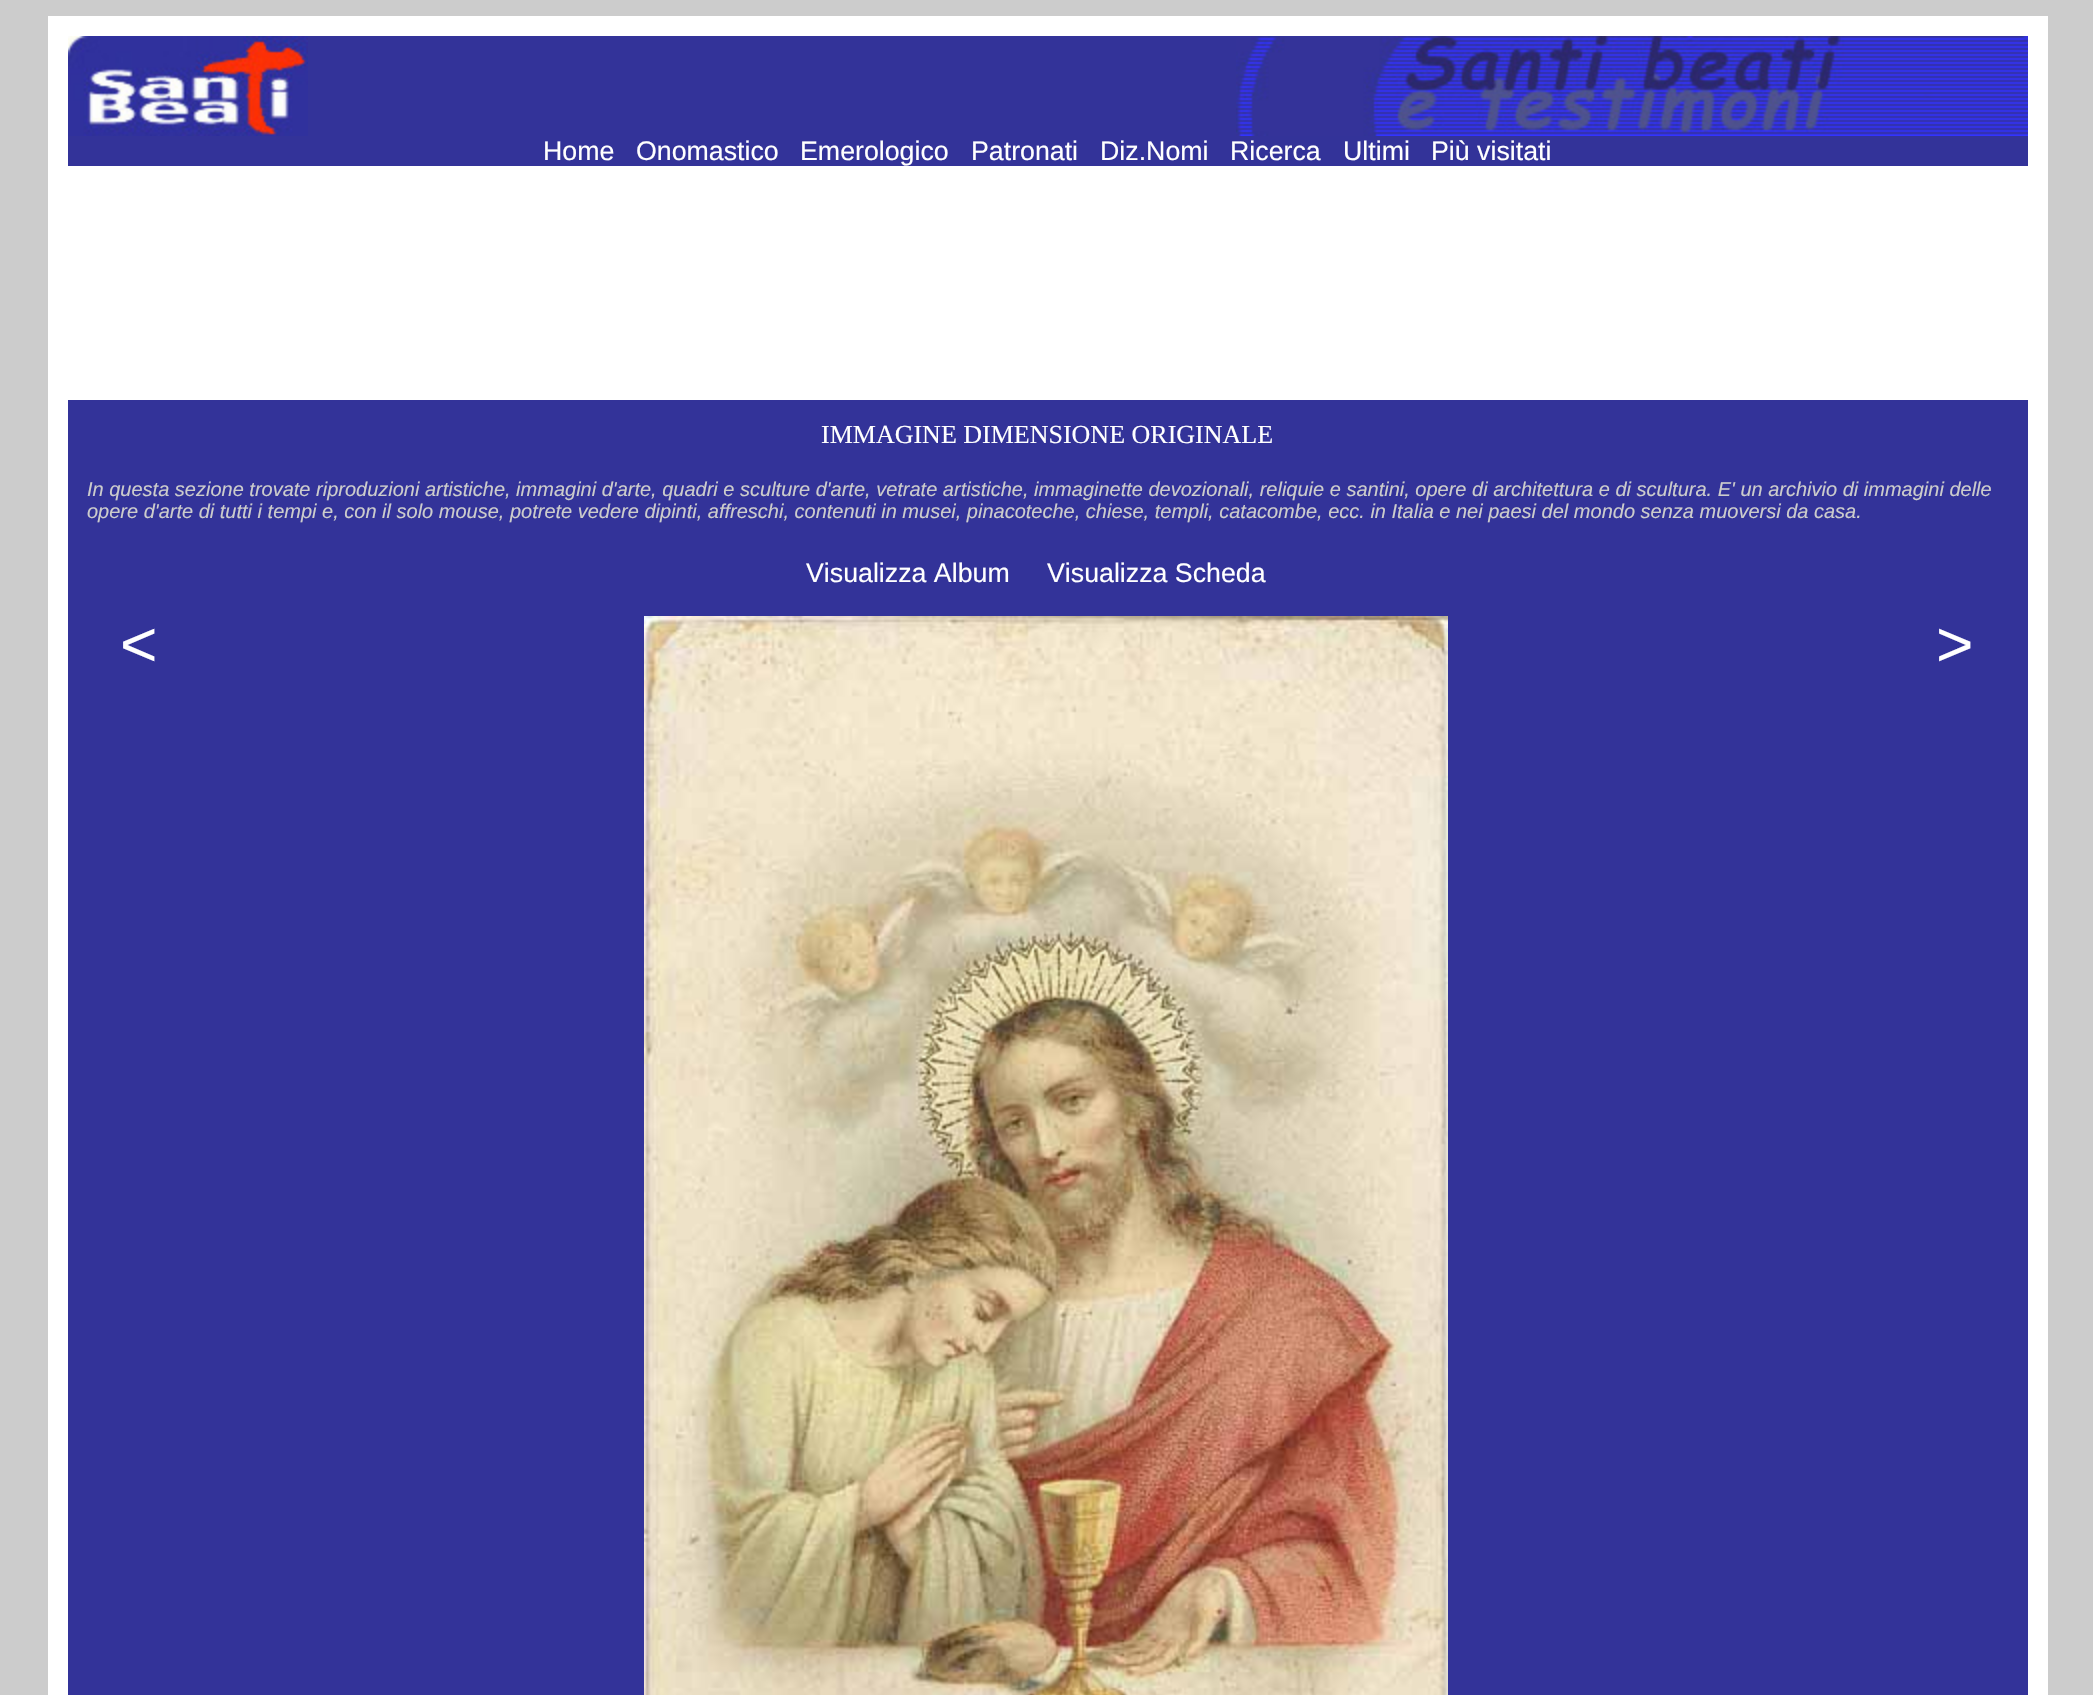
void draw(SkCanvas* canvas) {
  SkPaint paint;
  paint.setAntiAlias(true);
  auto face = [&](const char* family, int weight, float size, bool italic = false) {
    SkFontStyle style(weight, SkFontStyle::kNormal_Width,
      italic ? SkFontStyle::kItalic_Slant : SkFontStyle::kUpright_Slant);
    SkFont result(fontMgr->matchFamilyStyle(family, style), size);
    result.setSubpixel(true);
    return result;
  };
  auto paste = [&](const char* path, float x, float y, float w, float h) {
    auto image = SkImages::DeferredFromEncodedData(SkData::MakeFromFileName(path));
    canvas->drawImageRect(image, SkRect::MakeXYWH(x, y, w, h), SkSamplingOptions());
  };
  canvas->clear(0xffcccccc);
  paint.setColor(0xffffffff);
  canvas->drawRect(SkRect::MakeXYWH(48, 16, 2000, 1679), paint);
  paint.setColor(0xff333399);
  canvas->drawRect(SkRect::MakeXYWH(308, 36, 928, 100), paint);
  paste("img/1.png", 68, 36, 240, 100);
  paste("img/2.png", 1236, 36, 792, 100);
  canvas->drawRect(SkRect::MakeXYWH(68, 136, 1960, 30), paint);
  canvas->drawRect(SkRect::MakeXYWH(68, 400, 1960, 1295), paint);
  paste("img/3.png", 644, 616, 804, 1079);
  auto f0 = face("Liberation Sans", 400, 26.75f);
  paint.setColor(0xffffffff);
  {
    const struct { const char* s; float x, y; } items[] = {
      {"Home", 543, 160},
      {"Onomastico", 636, 160},
      {"Emerologico", 800, 160},
      {"Patronati", 971, 160},
      {"Diz.Nomi", 1100, 160},
      {"Ricerca", 1230, 160},
      {"Ultimi", 1343, 160},
      {"Più visitati", 1431, 160},
    };
    for (auto [s, x, y] : items) {
      canvas->drawString(s, x, y, f0, paint);
    }
  }
  auto f1 = face("Liberation Serif", 400, 26);
  canvas->drawString("IMMAGINE DIMENSIONE ORIGINALE", 821, 443, f1, paint);
  auto f2 = face("Liberation Sans", 400, 20, true);
  paint.setColor(0xffcccccc);
  canvas->drawString("In questa sezione trovate riproduzioni artistiche, immagini d'arte, quadri e sculture d'arte, vetrate artistiche, immaginette devozionali, reliquie e santini, opere di architettura e di scultura. E' un archivio di immagini delle", 87, 496, f2, paint);
  canvas->drawString("opere d'arte di tutti i tempi e, con il solo mouse, potrete vedere dipinti, affreschi, contenuti in musei, pinacoteche, chiese, templi, catacombe, ecc. in Italia e nei paesi del mondo senza muoversi da casa.", 87, 518, f2, paint);
  paint.setColor(0xffffffff);
  canvas->drawString("Visualizza Album", 806, 582, f0, paint);
  canvas->drawString("Visualizza Scheda", 1047, 582, f0, paint);
  auto f3 = face("Liberation Sans", 400, 64);
  canvas->drawString("<", 120, 666, f3, paint);
  canvas->drawString(">", 1936, 666, f3, paint);
}
